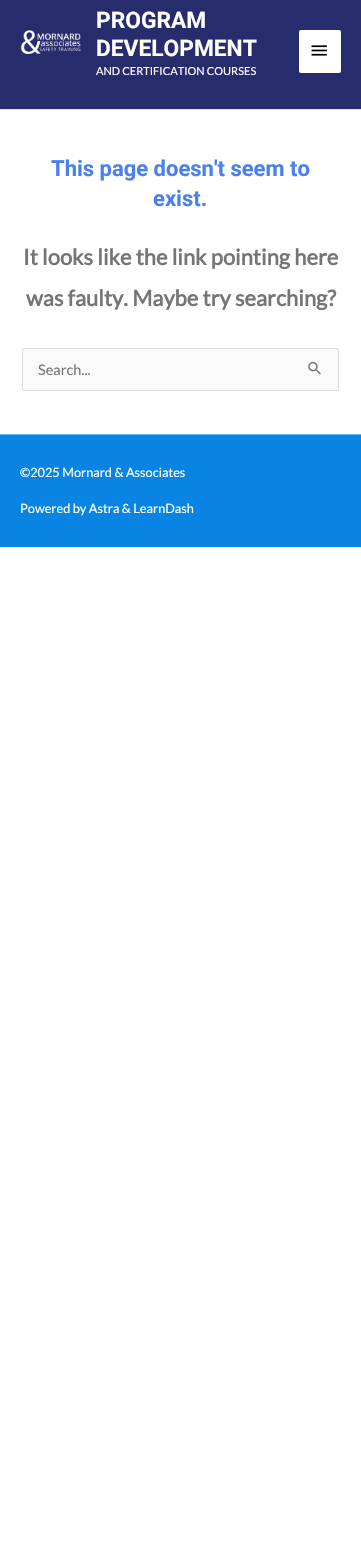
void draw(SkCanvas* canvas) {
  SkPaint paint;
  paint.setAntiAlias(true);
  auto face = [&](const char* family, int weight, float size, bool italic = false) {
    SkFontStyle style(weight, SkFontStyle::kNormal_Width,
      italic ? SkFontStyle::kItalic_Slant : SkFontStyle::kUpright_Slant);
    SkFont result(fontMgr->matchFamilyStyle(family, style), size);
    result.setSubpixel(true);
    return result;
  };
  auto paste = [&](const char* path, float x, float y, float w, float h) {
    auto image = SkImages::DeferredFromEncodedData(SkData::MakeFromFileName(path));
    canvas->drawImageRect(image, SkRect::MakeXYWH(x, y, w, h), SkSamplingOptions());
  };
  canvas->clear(0xffffffff);
  paint.setColor(0xff272c6c);
  canvas->drawRect(SkRect::MakeXYWH(0, 0, 361, 109), paint);
  paint.setColor(0xffdbdee0);
  canvas->drawRect(SkRect::MakeXYWH(0, 109, 361, 1), paint);
  paste("img/1.png", 20, 30, 61, 24);
  paint.setColor(0xffffffff);
  canvas->drawRoundRect(SkRect::MakeXYWH(299, 30, 42, 43), 2, 2, paint);
  paste("img/2.png", 311, 45, 16, 11);
  paint.setColor(0xfffafafa);
  canvas->drawRoundRect(SkRect::MakeXYWH(22.5f, 348.5f, 316, 42), 1.5f, 1.5f, paint);
  paint.setStroke(true);
  paint.setStrokeWidth(1);
  paint.setColor(0xffdddddd);
  canvas->drawRoundRect(SkRect::MakeXYWH(22.5f, 348.5f, 316, 42), 1.5f, 1.5f, paint);
  paste("img/3.png", 308, 361, 13, 14);
  paint.setStroke(false);
  paint.setColor(0xff66b3ee);
  canvas->drawRect(SkRect::MakeXYWH(0, 434, 361, 1), paint);
  paint.setColor(0xff0984e3);
  canvas->drawRect(SkRect::MakeXYWH(0, 435, 361, 112), paint);
  auto f0 = face("Roboto", 700, 22.75f);
  paint.setColor(0xffffffff);
  canvas->drawString("PROGRAM", 96, 28, f0, paint);
  canvas->drawString("DEVELOPMENT", 96, 56, f0, paint);
  auto f1 = face("Lato", 400, 11);
  canvas->drawString("AND CERTIFICATION COURSES", 96, 75, f1, paint);
  auto f2 = face("Roboto", 700, 22);
  paint.setColor(0xff4a80ec);
  canvas->drawString("This page doesn't seem to", 51, 176, f2, paint);
  canvas->drawString("exist.", 153, 206, f2, paint);
  auto f3 = face("Lato", 700, 21.9f);
  paint.setColor(0xff757579);
  canvas->drawString("It looks like the link pointing here", 23, 265, f3, paint);
  canvas->drawString("was faulty. Maybe try searching?", 26, 306, f3, paint);
  auto f4 = face("Lato", 400, 14.5f);
  canvas->drawString("Search...", 38, 375, f4, paint);
  auto f5 = face("Lato", 400, 12.75f);
  paint.setColor(0xffffffff);
  canvas->drawString("©2025 Mornard & Associates", 20, 477, f5, paint);
  canvas->drawString("Powered by Astra & LearnDash", 20, 513, f5, paint);
}
